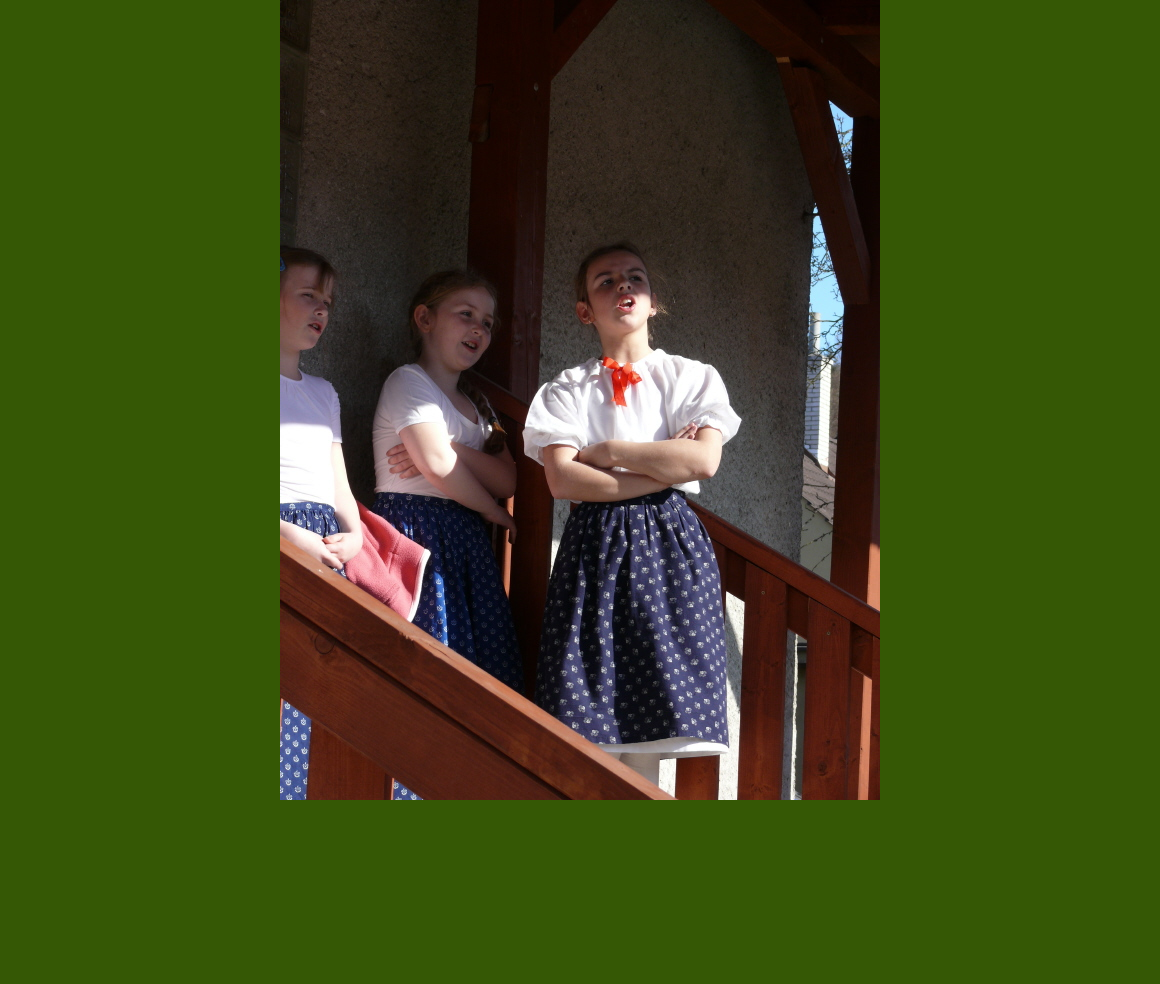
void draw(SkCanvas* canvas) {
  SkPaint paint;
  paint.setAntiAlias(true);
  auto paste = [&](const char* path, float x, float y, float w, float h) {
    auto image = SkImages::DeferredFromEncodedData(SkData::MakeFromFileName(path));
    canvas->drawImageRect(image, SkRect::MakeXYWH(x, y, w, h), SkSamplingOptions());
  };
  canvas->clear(0xff355805);
  paste("img/1.png", 280, 0, 600, 800);
}
